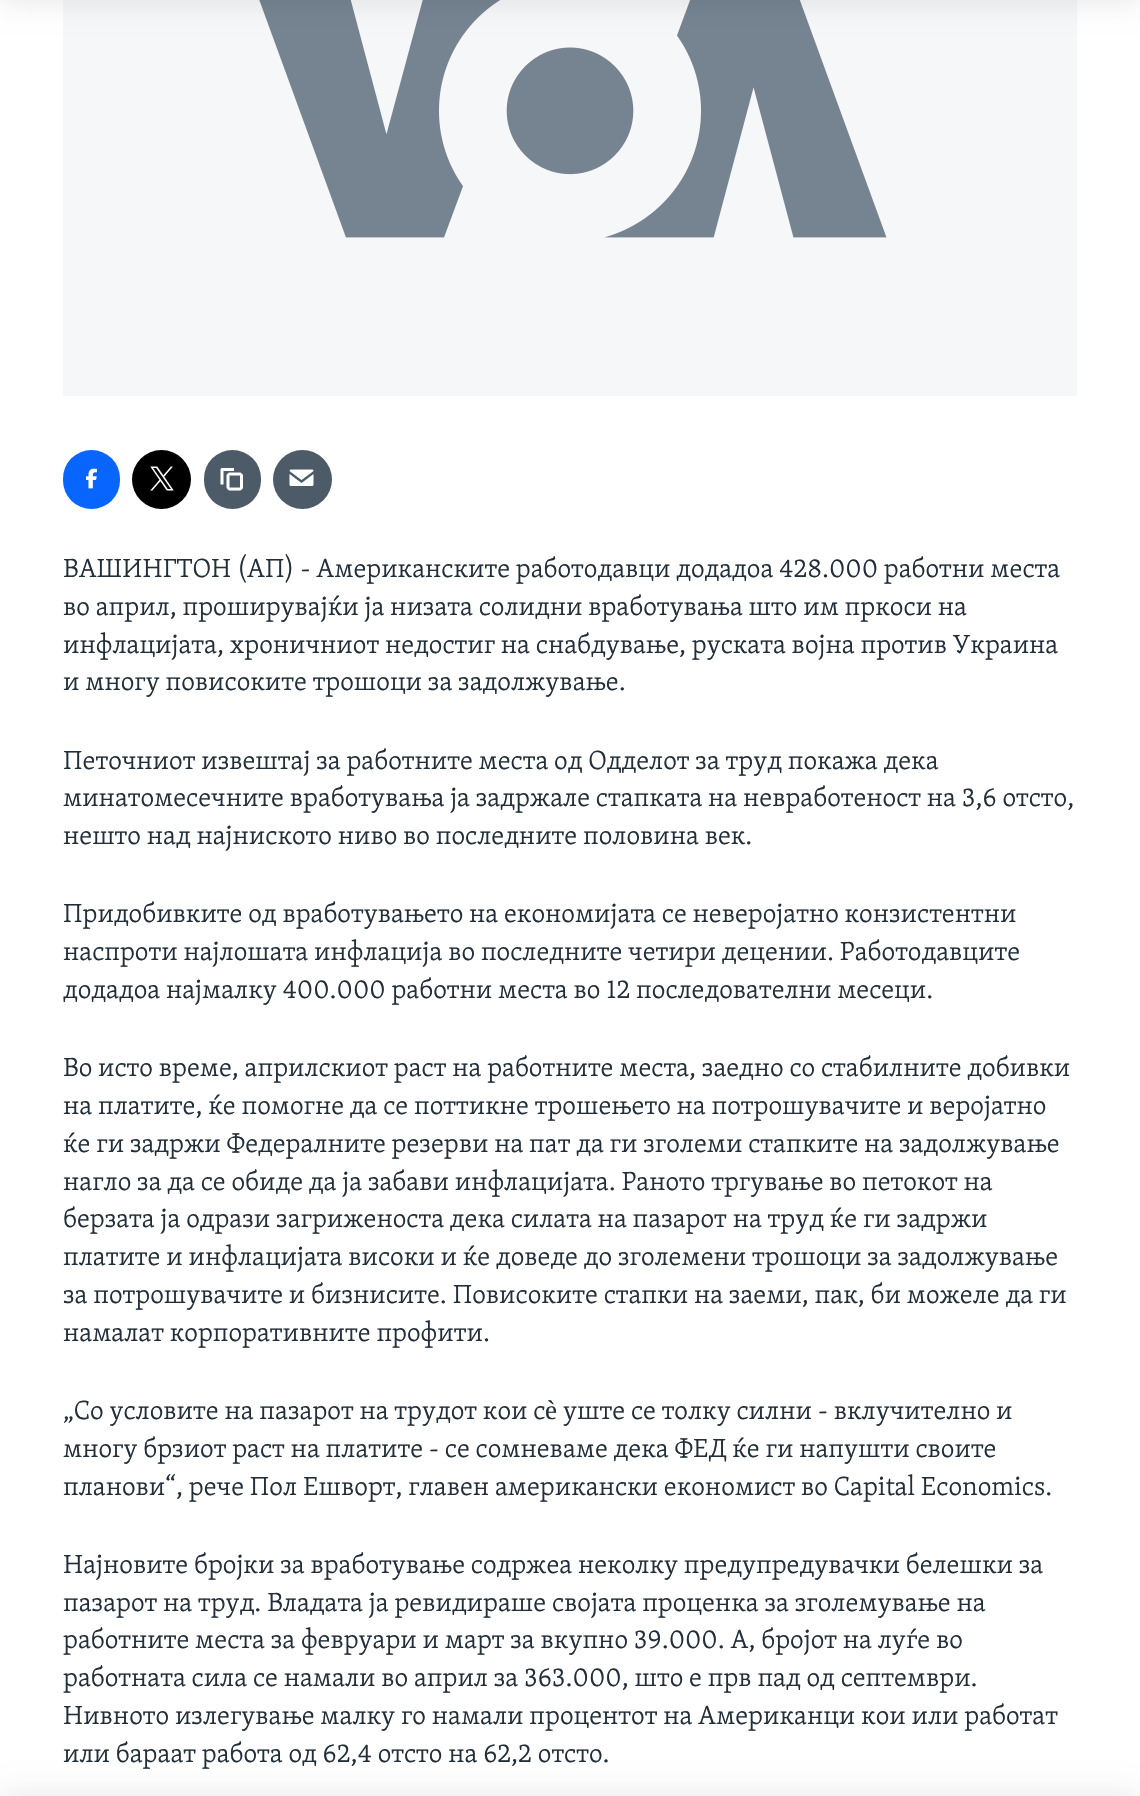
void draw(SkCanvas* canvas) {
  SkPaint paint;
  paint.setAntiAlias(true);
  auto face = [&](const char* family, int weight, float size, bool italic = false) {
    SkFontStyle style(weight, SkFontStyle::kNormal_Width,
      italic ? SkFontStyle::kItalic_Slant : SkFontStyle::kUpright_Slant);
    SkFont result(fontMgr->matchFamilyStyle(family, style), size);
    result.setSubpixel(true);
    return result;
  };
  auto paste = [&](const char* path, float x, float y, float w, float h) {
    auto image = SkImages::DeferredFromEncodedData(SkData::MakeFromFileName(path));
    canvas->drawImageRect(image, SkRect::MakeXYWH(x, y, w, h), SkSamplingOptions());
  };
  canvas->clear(0xffffffff);
  paint.setColor(0xfff6f7f8);
  canvas->drawRect(SkRect::MakeXYWH(63, 0, 1014, 396), paint);
  paste("img/1.png", 259, 0, 628, 238);
  paint.setColor(0x1a000000);
  paint.setMaskFilter(SkMaskFilter::MakeBlur(kNormal_SkBlurStyle, 15));
  canvas->drawRect(SkRect::MakeXYWH(0, -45, 1140, 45), paint);
  paint.setMaskFilter(nullptr);
  paint.setMaskFilter(SkMaskFilter::MakeBlur(kNormal_SkBlurStyle, 15));
  canvas->drawRect(SkRect::MakeXYWH(0, 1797, 1140, 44), paint);
  paint.setMaskFilter(nullptr);
  paint.setColor(0xff0866ff);
  canvas->drawRoundRect(SkRect::MakeXYWH(63, 450, 57, 59), 28.5f, 28.5f, paint);
  paste("img/2.png", 86, 468, 11, 21);
  paint.setColor(0xff000000);
  canvas->drawCircle(161.5f, 479.5f, 29.5f, paint);
  paste("img/3.png", 150, 466, 24, 25);
  paint.setColor(0xff4d5a67);
  canvas->drawRoundRect(SkRect::MakeXYWH(204, 450, 57, 59), 28.5f, 28.5f, paint);
  paste("img/4.png", 220, 468, 23, 23);
  canvas->drawCircle(302.5f, 479.5f, 29.5f, paint);
  paste("img/5.png", 289, 469, 25, 17);
  auto f0 = face("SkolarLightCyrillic", 300, 27);
  paint.setColor(0xff222f3a);
  {
    const struct { const char* s; float x, y; } items[] = {
      {"ВАШИНГТОН (АП) - Американските работодавци додадоа 428.000 работни места", 63, 577},
      {"во април, проширувајќи ја низата солидни вработувања што им пркоси на", 63, 615},
      {"инфлацијата, хроничниот недостиг на снабдување, руската војна против Украина", 63, 653},
      {"и многу повисоките трошоци за задолжување.", 63, 690},
      {"Петочниот извештај за работните места од Одделот за труд покажа дека", 63, 769},
      {"минатомесечните вработувања ја задржале стапката на невработеност на 3,6 отсто,", 63, 806},
      {"нешто над најниското ниво во последните половина век.", 63, 844},
      {"Придобивките од вработувањето на економијата се неверојатно конзистентни", 63, 922},
      {"наспроти најлошата инфлација во последните четири децении. Работодавците", 63, 960},
      {"додадоа најмалку 400.000 работни места во 12 последователни месеци.", 63, 998},
      {"Во исто време, априлскиот раст на работните места, заедно со стабилните добивки", 63, 1076},
      {"на платите, ќе помогне да се поттикне трошењето на потрошувачите и веројатно", 63, 1114},
      {"ќе ги задржи Федералните резерви на пат да ги зголеми стапките на задолжување", 63, 1152},
      {"нагло за да се обиде да ја забави инфлацијата. Раното тргување во петокот на", 63, 1190},
      {"берзата ја одрази загриженоста дека силата на пазарот на труд ќе ги задржи", 63, 1227},
      {"платите и инфлацијата високи и ќе доведе до зголемени трошоци за задолжување", 63, 1265},
      {"за потрошувачите и бизнисите. Повисоките стапки на заеми, пак, би можеле да ги", 63, 1303},
      {"намалат корпоративните профити.", 63, 1341},
      {"„Со условите на пазарот на трудот кои с", 63, 1419},
    };
    for (auto [s, x, y] : items) {
      canvas->drawString(s, x, y, f0, paint);
    }
  }
  auto f1 = face("Liberation Serif", 400, 27);
  canvas->drawString("è", 545, 1419, f1, paint);
  {
    const struct { const char* s; float x, y; } items[] = {
      {"уште се толку силни - вклучително и", 563, 1419},
      {"многу брзиот раст на платите - се сомневаме дека ФЕД ќе ги напушти своите", 63, 1457},
      {"планови“, рече Пол Ешворт, главен американски економист во Capital Economics.", 63, 1495},
      {"Најновите бројки за вработување содржеа неколку предупредувачки белешки за", 63, 1573},
      {"пазарот на труд. Владата ја ревидираше својата проценка за зголемување на", 63, 1611},
      {"работните места за февруари и март за вкупно 39.000. А, бројот на луѓе во", 63, 1648},
      {"работната сила се намали во април за 363.000, што е прв пад од септември.", 63, 1686},
      {"Нивното излегување малку го намали процентот на Американци кои или работат", 63, 1724},
      {"или бараат работа од 62,4 отсто на 62,2 отсто.", 63, 1762},
    };
    for (auto [s, x, y] : items) {
      canvas->drawString(s, x, y, f0, paint);
    }
  }
}
